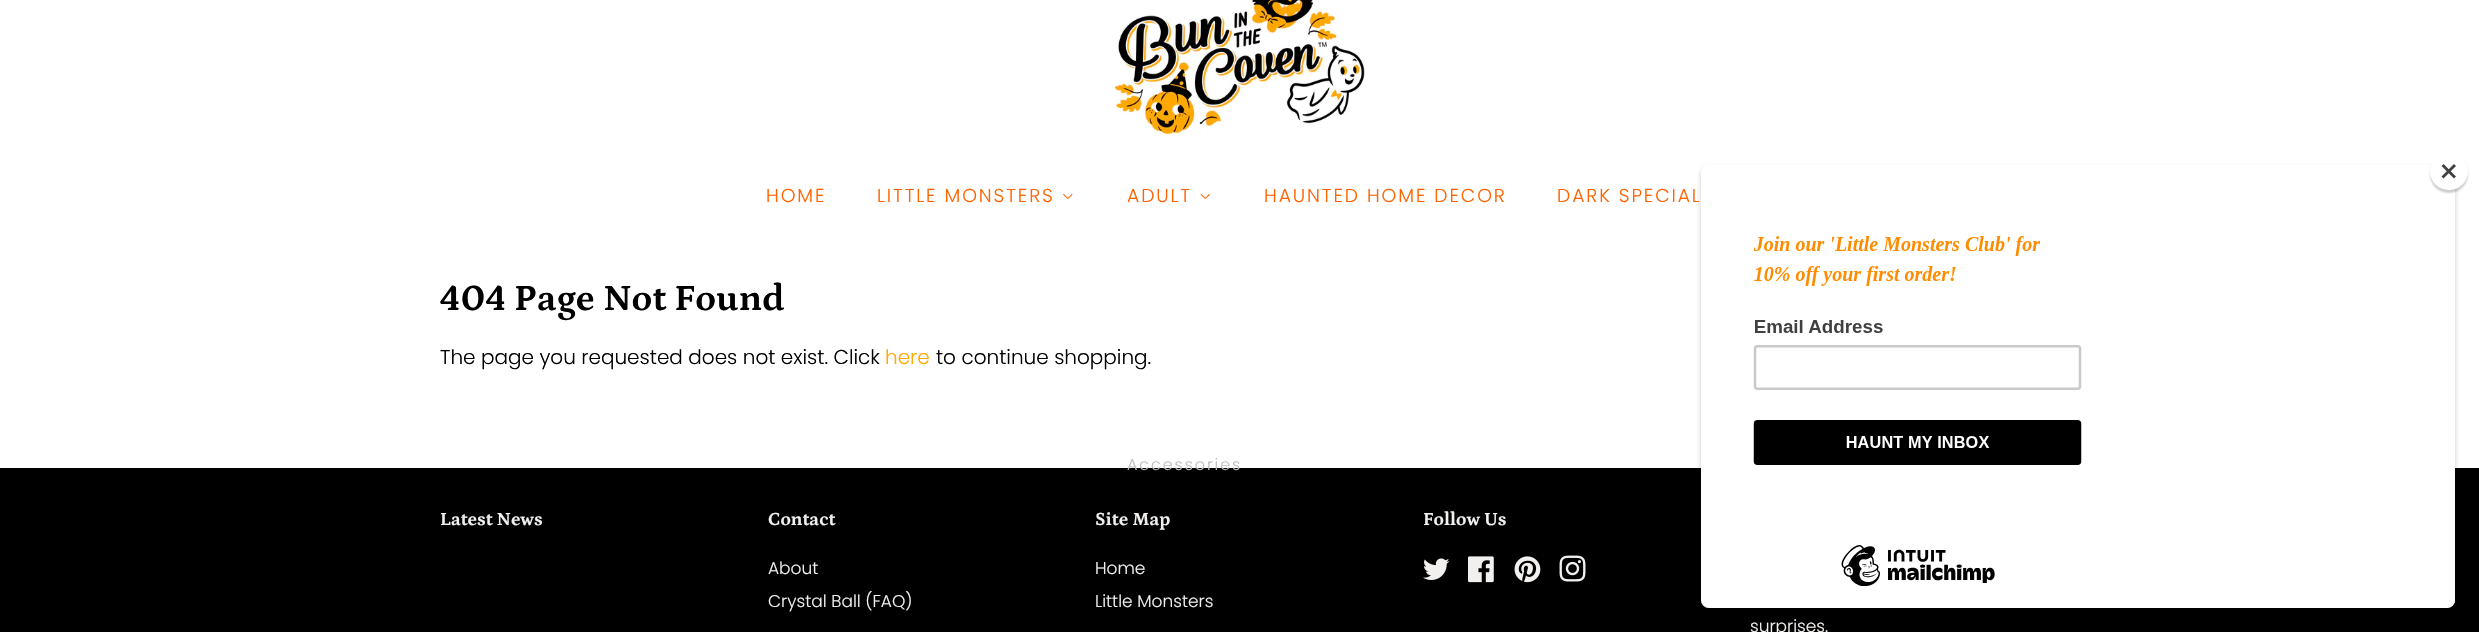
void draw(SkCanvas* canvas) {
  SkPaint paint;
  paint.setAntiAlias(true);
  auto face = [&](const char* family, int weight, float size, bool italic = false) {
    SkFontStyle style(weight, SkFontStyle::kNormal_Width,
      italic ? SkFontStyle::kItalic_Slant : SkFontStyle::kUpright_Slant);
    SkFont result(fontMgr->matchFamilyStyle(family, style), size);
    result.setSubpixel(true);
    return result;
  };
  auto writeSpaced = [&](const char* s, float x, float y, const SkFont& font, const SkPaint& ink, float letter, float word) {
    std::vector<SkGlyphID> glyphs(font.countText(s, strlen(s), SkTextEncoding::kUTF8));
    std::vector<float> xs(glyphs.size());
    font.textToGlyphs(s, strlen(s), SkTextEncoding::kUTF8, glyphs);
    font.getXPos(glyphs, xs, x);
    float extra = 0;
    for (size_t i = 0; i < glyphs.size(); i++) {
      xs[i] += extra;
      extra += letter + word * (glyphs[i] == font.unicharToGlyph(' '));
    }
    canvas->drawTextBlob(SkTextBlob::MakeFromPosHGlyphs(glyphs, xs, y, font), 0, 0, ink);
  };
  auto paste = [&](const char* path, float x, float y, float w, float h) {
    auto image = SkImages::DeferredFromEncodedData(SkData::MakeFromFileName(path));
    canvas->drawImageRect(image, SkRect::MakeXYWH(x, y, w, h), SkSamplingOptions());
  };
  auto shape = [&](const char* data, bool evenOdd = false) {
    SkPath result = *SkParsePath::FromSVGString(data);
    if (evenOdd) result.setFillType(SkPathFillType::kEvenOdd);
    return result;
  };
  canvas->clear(0xffffffff);
  paste("img/1.png", 1115, 0, 250, 134);
  paste("img/2.png", 1063, 193, 10, 6);
  paste("img/3.png", 1200, 193, 10, 6);
  paint.setColor(0xff000000);
  canvas->drawRect(SkRect::MakeXYWH(0, 468, 2479, 164), paint);
  paint.setColor(0x33000000);
  paint.setMaskFilter(SkMaskFilter::MakeBlur(kNormal_SkBlurStyle, 2.5f));
  canvas->drawRoundRect(SkRect::MakeXYWH(1701, 168, 754, 442), 8, 8, paint);
  paint.setMaskFilter(nullptr);
  paint.setColor(0xffffffff);
  canvas->drawRoundRect(SkRect::MakeXYWH(1701, 165, 754, 443), 8, 8, paint);
  paint.setColor(0x33000000);
  paint.setMaskFilter(SkMaskFilter::MakeBlur(kNormal_SkBlurStyle, 1));
  canvas->drawRoundRect(SkRect::MakeXYWH(2430, 155, 38, 38), 19, 19, paint);
  paint.setMaskFilter(nullptr);
  paint.setColor(0xffffffff);
  canvas->drawRoundRect(SkRect::MakeXYWH(2430, 153, 38, 37), 18.5f, 18.5f, paint);
  paint.setColor(0xff414141);
  canvas->drawPath(shape("M2454 164L2456 166L2443.5 178.5L2441.5 176.5Z"), paint);
  canvas->drawPath(shape("M2441.5 166L2443.5 164L2456 176.5L2454 178.5Z"), paint);
  paste("img/4.png", 1701, 236, 754, 372);
  paste("img/5.png", 1423, 558, 27, 22);
  paste("img/6.png", 1468, 556, 26, 27);
  paste("img/7.png", 1514, 556, 27, 27);
  paste("img/8.png", 1559, 555, 27, 27);
  auto f0 = face("Poppins", 300, 18.75f);
  paint.setColor(0xffff6300);
  {
    const struct { const char* s; float x, y; } items[] = {
      {"HOME", 766, 202},
      {"LITTLE MONSTERS", 877, 202},
      {"ADULT", 1127, 202},
    };
    for (auto [s, x, y] : items) {
      writeSpaced(s, x, y, f0, paint, 1.9f, 0);
    }
  }
  auto f1 = face("Poppins", 300, 16);
  paint.setColor(0xffbebebe);
  writeSpaced("Accessories", 1127, 470, f1, paint, 1.9f, 0);
  paint.setColor(0xffff6300);
  writeSpaced("HAUNTED HOME DECOR", 1264, 202, f0, paint, 1.9f, 0);
  writeSpaced("DARK SPECIAL", 1557, 202, f0, paint, 1.9f, 0);
  auto f2 = face("Petrona", 700, 37.5f);
  paint.setColor(0xff000000);
  canvas->drawString("404 Page Not Found", 440, 310, f2, paint);
  auto f3 = face("Poppins", 300, 20);
  canvas->drawString("The page you requested does not exist. Click", 440, 364, f3, paint);
  paint.setColor(0xffffa800);
  canvas->drawString("here", 885, 364, f3, paint);
  paint.setColor(0xff000000);
  canvas->drawString("to continue shopping.", 936, 364, f3, paint);
  auto f4 = face("Petrona", 700, 18.75f);
  paint.setColor(0xfff2f0ee);
  canvas->drawString("Latest News", 440, 525, f4, paint);
  canvas->drawString("Contact", 768, 525, f4, paint);
  auto f5 = face("Poppins", 300, 17);
  canvas->drawString("About", 768, 574, f5, paint);
  canvas->drawString("Crystal Ball (FAQ)", 768, 607, f5, paint);
  canvas->drawString("Site Map", 1095, 525, f4, paint);
  canvas->drawString("Home", 1095, 574, f5, paint);
  canvas->drawString("Little Monsters", 1095, 607, f5, paint);
  canvas->drawString("Follow Us", 1423, 525, f4, paint);
  canvas->drawString("surprises.", 1750, 632, f5, paint);
}
